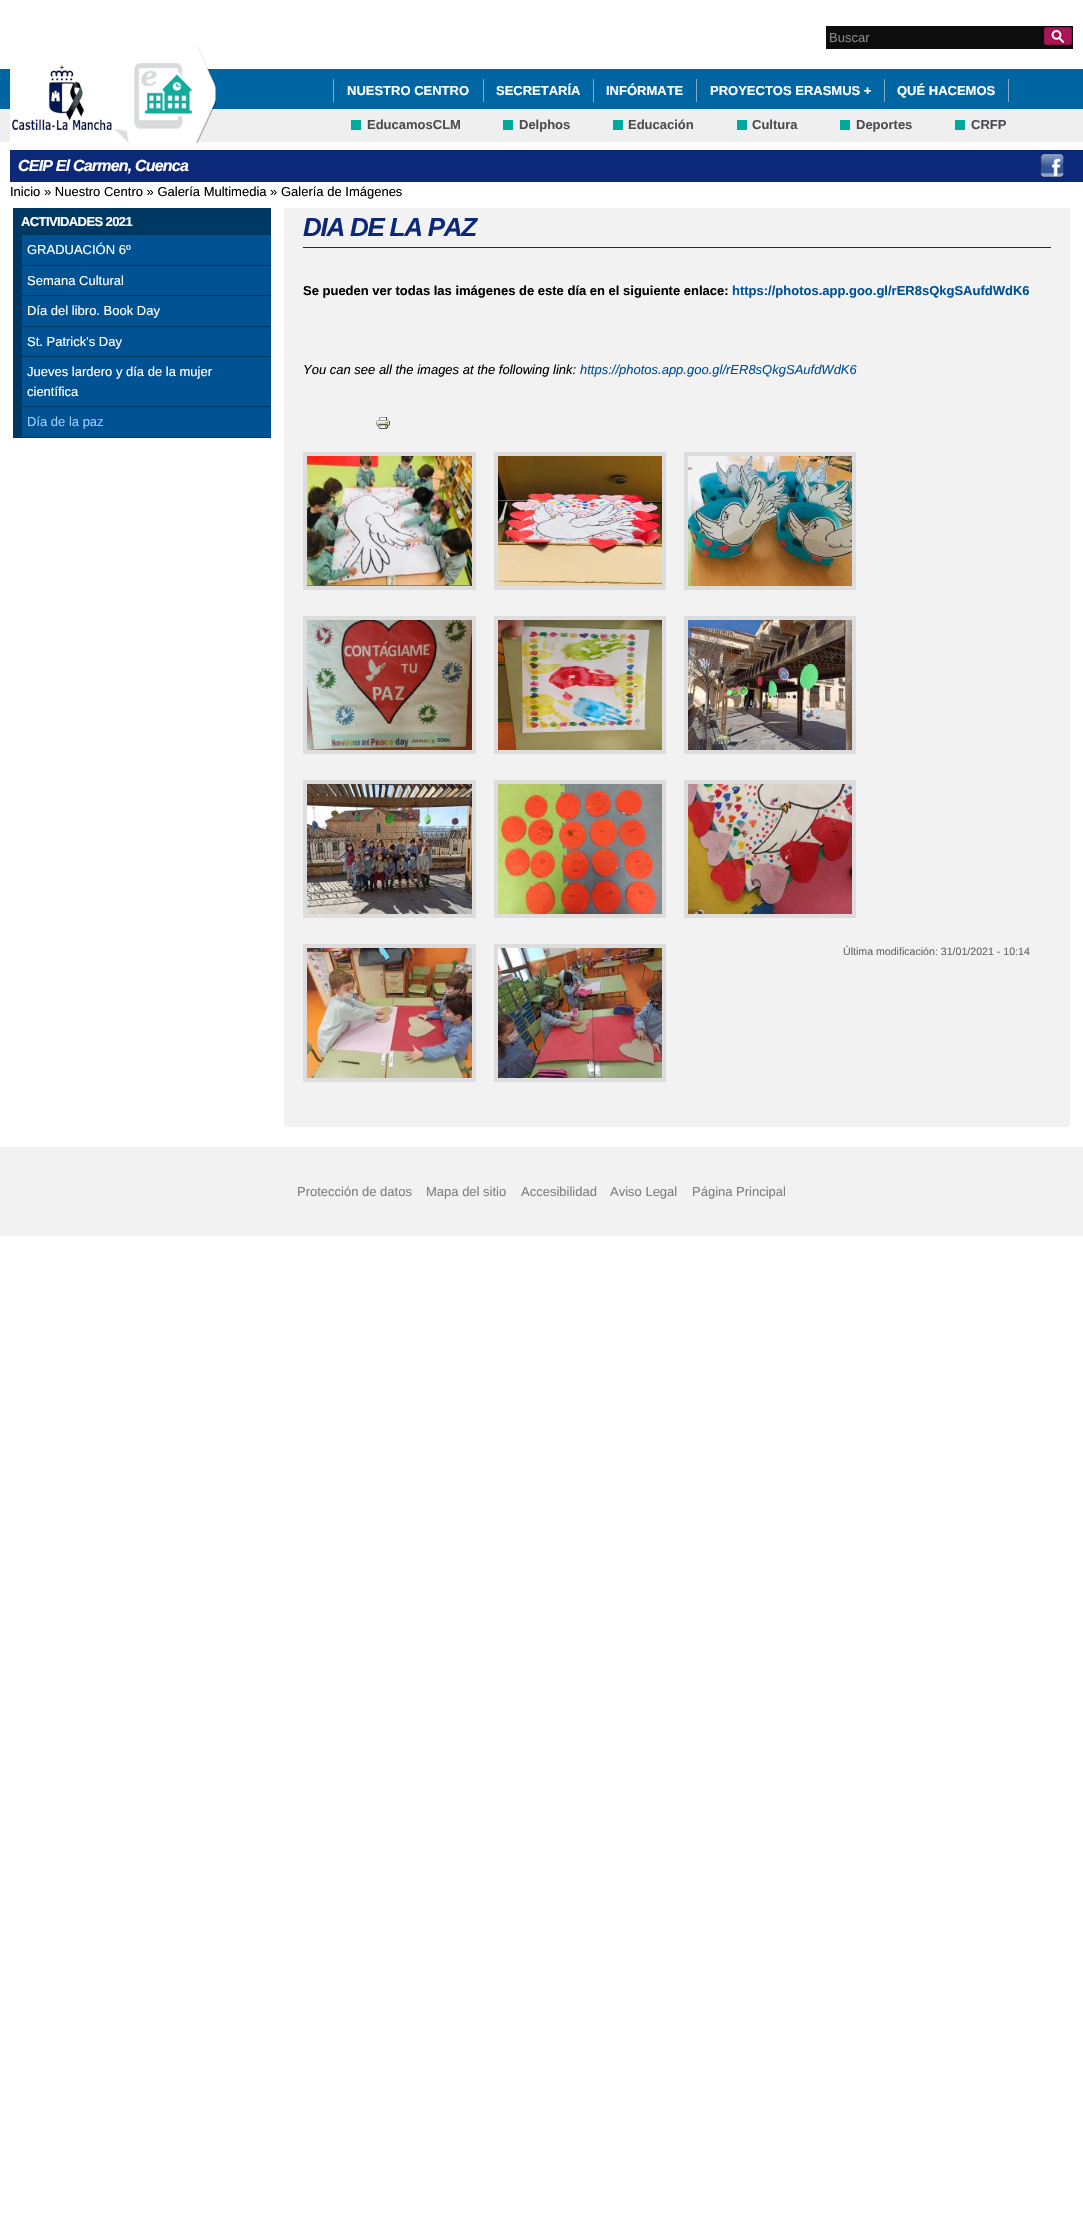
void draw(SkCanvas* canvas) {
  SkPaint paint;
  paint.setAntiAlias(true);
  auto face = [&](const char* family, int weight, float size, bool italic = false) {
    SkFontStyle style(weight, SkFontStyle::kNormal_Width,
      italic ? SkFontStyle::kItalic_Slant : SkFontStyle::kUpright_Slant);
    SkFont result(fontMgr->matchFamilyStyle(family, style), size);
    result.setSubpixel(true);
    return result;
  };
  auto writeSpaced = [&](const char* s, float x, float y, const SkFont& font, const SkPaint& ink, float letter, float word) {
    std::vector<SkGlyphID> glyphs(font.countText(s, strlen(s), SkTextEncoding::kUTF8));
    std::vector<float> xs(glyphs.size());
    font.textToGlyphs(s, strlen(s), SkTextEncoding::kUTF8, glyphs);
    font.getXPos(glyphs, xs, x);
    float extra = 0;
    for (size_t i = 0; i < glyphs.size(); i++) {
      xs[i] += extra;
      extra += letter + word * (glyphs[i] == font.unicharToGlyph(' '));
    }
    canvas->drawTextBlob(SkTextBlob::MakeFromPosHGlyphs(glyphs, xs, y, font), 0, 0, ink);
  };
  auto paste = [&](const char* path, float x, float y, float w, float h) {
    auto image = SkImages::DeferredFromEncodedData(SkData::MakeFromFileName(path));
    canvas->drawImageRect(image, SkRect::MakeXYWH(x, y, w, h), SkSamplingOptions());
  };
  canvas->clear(0xffffffff);
  paint.setColor(0xff0d0d0d);
  canvas->drawRect(SkRect::MakeXYWH(826, 26, 247, 23), paint);
  paste("img/1.png", 1044, 27, 28, 18);
  paint.setColor(0xff0065a3);
  canvas->drawRect(SkRect::MakeXYWH(0, 69, 1083, 40), paint);
  paint.setColor(0xffefefef);
  canvas->drawRect(SkRect::MakeXYWH(0, 109, 1083, 33), paint);
  paste("img/2.png", 10, 65, 118, 77);
  paste("img/3.png", 114, 44, 102, 99);
  {
    const struct { float x, y, w, h; SkColor color; } items[] = {
      {483, 79, 1, 23, 0xff85a9cc},
      {333, 79, 1, 23, 0xff85a9cc},
      {593, 79, 1, 23, 0xff85a9cc},
      {696, 79, 1, 23, 0xff85a9cc},
      {884, 79, 1, 23, 0xff85a9cc},
      {1008, 79, 1, 23, 0xff85a9cc},
      {351, 120, 10, 10, 0xff00a99d},
      {503, 120, 10, 10, 0xff00a99d},
      {613, 120, 10, 10, 0xff00a99d},
      {737, 120, 10, 10, 0xff00a99d},
      {840, 120, 10, 10, 0xff00a99d},
      {955, 120, 10, 10, 0xff00a99d},
      {10, 150, 1073, 32, 0xff0c2979},
    };
    for (auto [x, y, w, h, color] : items) {
      paint.setColor(color);
      canvas->drawRect(SkRect::MakeXYWH(x, y, w, h), paint);
    }
  }
  paste("img/4.png", 1040, 154, 24, 24);
  {
    const struct { float x, y, w, h; SkColor color; } items[] = {
      {13, 208, 258, 230, 0xff003864},
      {22, 235, 249, 30, 0xff005293},
      {22, 266, 249, 29, 0xff005293},
      {22, 296, 249, 30, 0xff005293},
      {22, 327, 249, 29, 0xff005293},
      {22, 357, 249, 49, 0xff005293},
      {22, 407, 249, 30, 0xff005293},
      {284, 208, 786, 919, 0xfff2f2f2},
      {303, 247, 748, 1, 0xff0c2979},
    };
    for (auto [x, y, w, h, color] : items) {
      paint.setColor(color);
      canvas->drawRect(SkRect::MakeXYWH(x, y, w, h), paint);
    }
  }
  paste("img/5.png", 376, 417, 14, 12);
  paint.setStroke(true);
  paint.setStrokeWidth(4);
  paint.setColor(0xffdddddd);
  canvas->drawRect(SkRect::MakeXYWH(305, 454, 169, 134), paint);
  paste("img/6.png", 307, 456, 165, 130);
  canvas->drawRect(SkRect::MakeXYWH(496, 454, 168, 134), paint);
  paste("img/7.png", 498, 456, 164, 130);
  canvas->drawRect(SkRect::MakeXYWH(686, 454, 168, 134), paint);
  paste("img/8.png", 688, 456, 164, 130);
  canvas->drawRect(SkRect::MakeXYWH(305, 618, 169, 134), paint);
  paste("img/9.png", 307, 620, 165, 130);
  canvas->drawRect(SkRect::MakeXYWH(496, 618, 168, 134), paint);
  paste("img/10.png", 498, 620, 164, 130);
  canvas->drawRect(SkRect::MakeXYWH(686, 618, 168, 134), paint);
  paste("img/11.png", 688, 620, 164, 130);
  canvas->drawRect(SkRect::MakeXYWH(305, 782, 169, 134), paint);
  paste("img/12.png", 307, 784, 165, 130);
  canvas->drawRect(SkRect::MakeXYWH(496, 782, 168, 134), paint);
  paste("img/13.png", 498, 784, 164, 130);
  canvas->drawRect(SkRect::MakeXYWH(686, 782, 168, 134), paint);
  paste("img/14.png", 688, 784, 164, 130);
  canvas->drawRect(SkRect::MakeXYWH(305, 946, 169, 134), paint);
  paste("img/15.png", 307, 948, 165, 130);
  canvas->drawRect(SkRect::MakeXYWH(496, 946, 168, 134), paint);
  paste("img/16.png", 498, 948, 164, 130);
  paint.setStroke(false);
  paint.setColor(0xfff2f2f2);
  canvas->drawRect(SkRect::MakeXYWH(0, 1147, 1083, 89), paint);
  auto f0 = face("Liberation Sans", 400, 13);
  paint.setColor(0xff888888);
  canvas->drawString("Buscar", 829, 42, f0, paint);
  auto f1 = face("Liberation Sans", 700, 13);
  paint.setColor(0xffffffff);
  {
    const struct { const char* s; float x, y; } items[] = {
      {"NUESTRO CENTRO", 347, 95},
      {"SECRETARÍA", 496, 95},
      {"INFÓRMATE", 606, 95},
      {"PROYECTOS ERASMUS +", 710, 95},
      {"QUÉ HACEMOS", 897, 95},
    };
    for (auto [s, x, y] : items) {
      canvas->drawString(s, x, y, f1, paint);
    }
  }
  paint.setColor(0xff4e4d52);
  {
    const struct { const char* s; float x, y; } items[] = {
      {"EducamosCLM", 367, 129},
      {"Delphos", 519, 129},
      {"Educación", 628, 129},
      {"Cultura", 752, 129},
      {"Deportes", 856, 129},
      {"CRFP", 971, 129},
    };
    for (auto [s, x, y] : items) {
      canvas->drawString(s, x, y, f1, paint);
    }
  }
  auto f2 = face("Liberation Sans", 700, 16, true);
  paint.setColor(0xffffffff);
  writeSpaced("CEIP El Carmen, Cuenca", 18, 171, f2, paint, -0.8f, 0);
  paint.setColor(0xff000000);
  canvas->drawString("Inicio » Nuestro Centro » Galería Multimedia » Galería de Imágenes", 10, 196, f0, paint);
  paint.setColor(0xffffffff);
  writeSpaced("ACTIVIDADES 2021", 21, 226, f1, paint, -0.6f, 0);
  {
    const struct { const char* s; float x, y; } items[] = {
      {"GRADUACIÓN 6º", 27, 254},
      {"Semana Cultural", 27, 285},
      {"Día del libro. Book Day", 27, 315},
      {"St. Patrick's Day", 27, 346},
      {"Jueves lardero y día de la mujer", 27, 376},
      {"científica", 27, 396},
    };
    for (auto [s, x, y] : items) {
      canvas->drawString(s, x, y, f0, paint);
    }
  }
  paint.setColor(0xff99ccff);
  canvas->drawString("Día de la paz", 27, 426, f0, paint);
  auto f3 = face("Liberation Sans", 700, 26, true);
  paint.setColor(0xff0c2979);
  writeSpaced("DIA DE LA PAZ", 303, 236, f3, paint, -1.25f, 0);
  paint.setColor(0xff000000);
  canvas->drawString("Se pueden ver todas las imágenes de este día en el siguiente enlace:", 303, 295, f1, paint);
  paint.setColor(0xff005196);
  canvas->drawString("https://photos.app.goo.gl/rER8sQkgSAufdWdK6", 732, 295, f1, paint);
  auto f4 = face("Liberation Sans", 400, 13, true);
  paint.setColor(0xff000000);
  canvas->drawString("You can see all the images at the following link:", 303, 374, f4, paint);
  paint.setColor(0xff005196);
  canvas->drawString("https://photos.app.goo.gl/rER8sQkgSAufdWdK6", 580, 374, f4, paint);
  auto f5 = face("Liberation Sans", 400, 10.6f);
  paint.setColor(0xff666666);
  canvas->drawString("Última modificación: 31/01/2021 - 10:14", 843, 955, f5, paint);
  paint.setColor(0xff808080);
  {
    const struct { const char* s; float x, y; } items[] = {
      {"Protección de datos", 297, 1196},
      {"Mapa del sitio", 426, 1196},
      {"Accesibilidad", 521, 1196},
      {"Aviso Legal", 610, 1196},
      {"Página Principal", 692, 1196},
    };
    for (auto [s, x, y] : items) {
      canvas->drawString(s, x, y, f0, paint);
    }
  }
}
